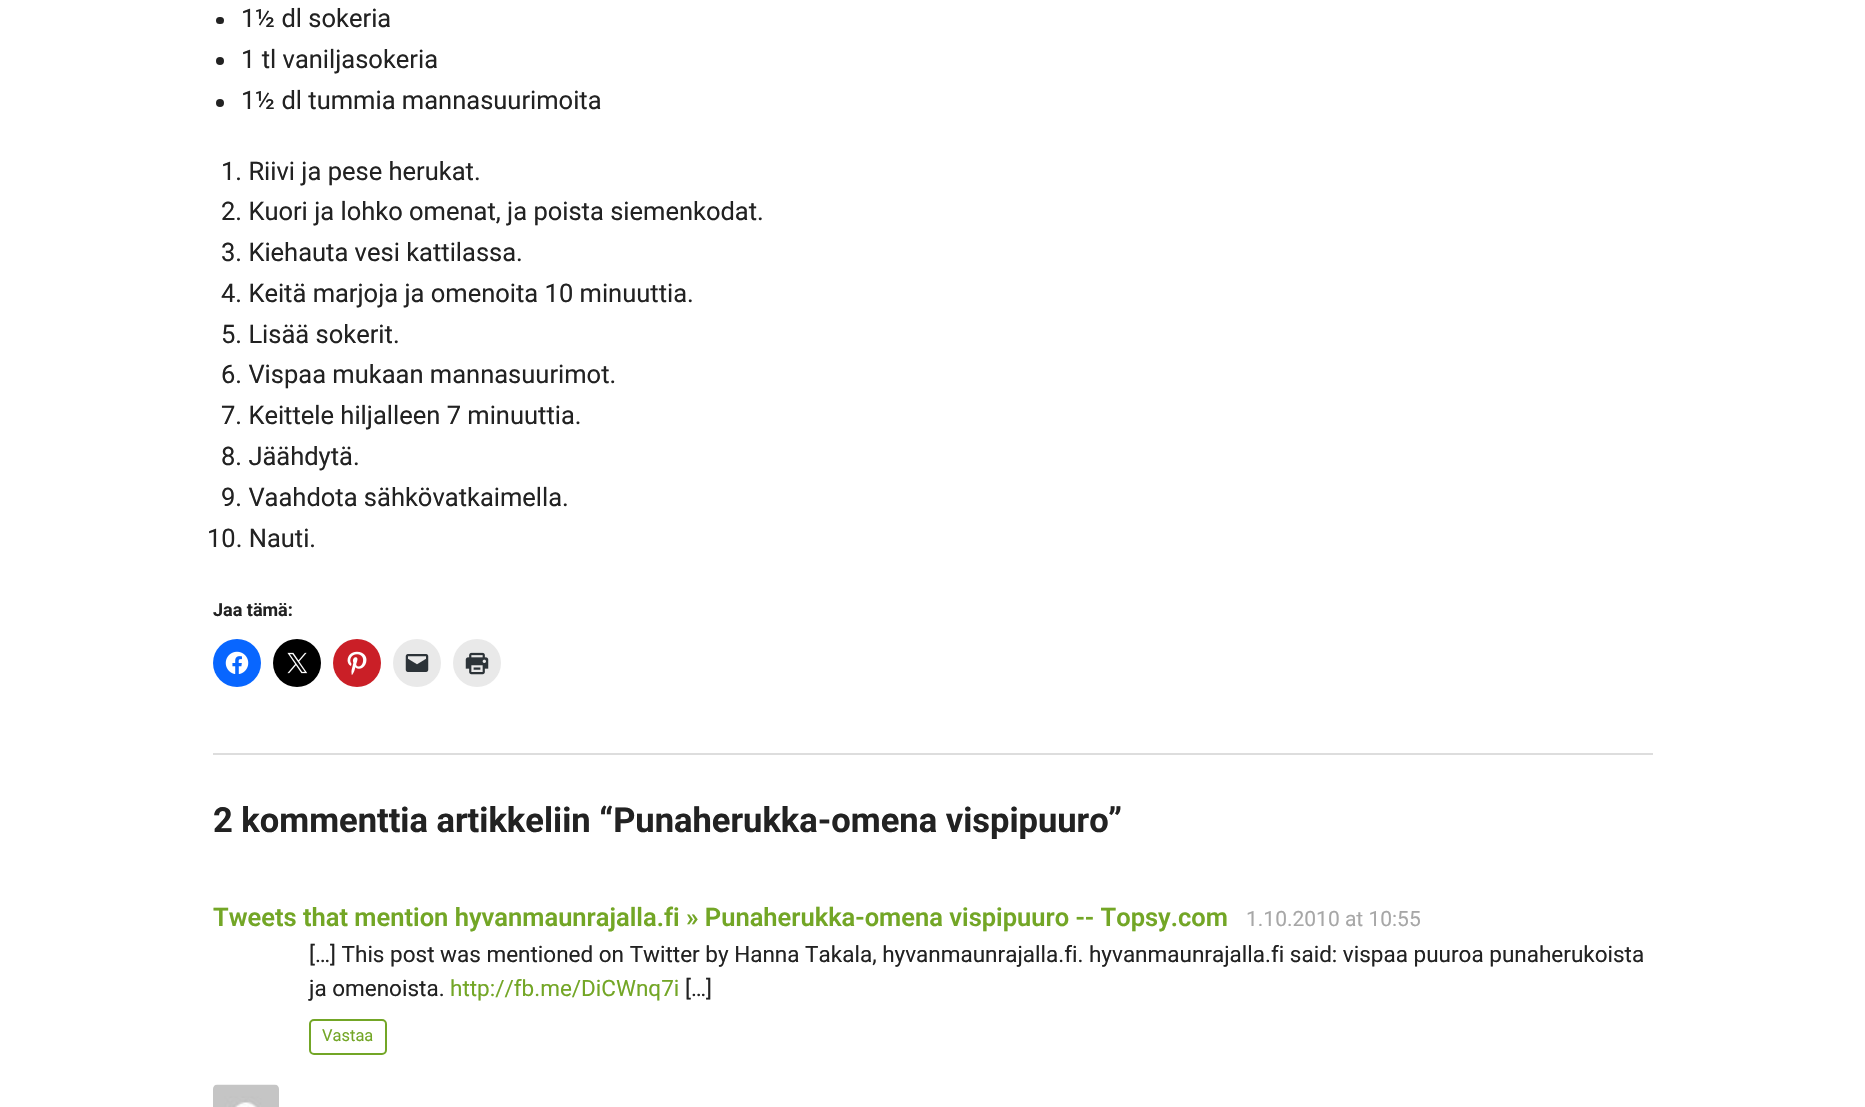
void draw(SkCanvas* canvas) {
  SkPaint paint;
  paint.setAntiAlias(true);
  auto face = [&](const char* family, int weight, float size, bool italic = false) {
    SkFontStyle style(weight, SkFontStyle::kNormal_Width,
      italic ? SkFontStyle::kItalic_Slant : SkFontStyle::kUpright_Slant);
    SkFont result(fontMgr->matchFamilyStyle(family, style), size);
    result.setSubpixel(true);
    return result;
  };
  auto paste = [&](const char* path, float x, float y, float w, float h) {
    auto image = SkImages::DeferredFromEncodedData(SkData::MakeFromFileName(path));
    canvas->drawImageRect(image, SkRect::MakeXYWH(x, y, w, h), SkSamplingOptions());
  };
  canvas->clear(0xffffffff);
  paint.setColor(0xff222222);
  canvas->drawRoundRect(SkRect::MakeXYWH(216, 17, 8, 7), 3.5f, 3.5f, paint);
  canvas->drawCircle(220, 61, 4, paint);
  canvas->drawCircle(220, 103, 4, paint);
  paint.setColor(0xff0866ff);
  canvas->drawCircle(237, 663, 24, paint);
  paste("img/1.png", 225, 651, 24, 23);
  paint.setColor(0xff000000);
  canvas->drawCircle(297, 663, 24, paint);
  paste("img/2.png", 287, 652, 21, 22);
  paint.setColor(0xffca1f27);
  canvas->drawCircle(357, 663, 24, paint);
  paste("img/3.png", 347, 651, 20, 24);
  paint.setColor(0xffe9e9e9);
  canvas->drawCircle(417, 663, 24, paint);
  paste("img/4.png", 405, 654, 24, 18);
  canvas->drawCircle(477, 663, 24, paint);
  paste("img/5.png", 465, 652, 24, 23);
  paint.setColor(0xffdddddd);
  canvas->drawRect(SkRect::MakeXYWH(213, 753, 1440, 2), paint);
  paint.setStroke(true);
  paint.setStrokeWidth(2);
  paint.setColor(0xff73a626);
  canvas->drawRoundRect(SkRect::MakeXYWH(310, 1020, 76, 34), 4, 4, paint);
  paste("img/6.png", 213, 1084, 66, 23);
  auto f0 = face("Roboto", 400, 25.5f);
  paint.setStroke(false);
  paint.setColor(0xff222222);
  {
    const struct { const char* s; float x, y; } items[] = {
      {"1½ dl sokeria", 241, 27},
      {"1 tl vaniljasokeria", 241, 68},
      {"1½ dl tummia mannasuurimoita", 241, 109},
      {"1. Riivi ja pese herukat.", 221, 180},
      {"2. Kuori ja lohko omenat, ja poista siemenkodat.", 221, 220},
      {"3. Kiehauta vesi kattilassa.", 221, 261},
      {"4. Keitä marjoja ja omenoita 10 minuuttia.", 221, 302},
      {"5. Lisää sokerit.", 221, 343},
      {"6. Vispaa mukaan mannasuurimot.", 221, 383},
      {"7. Keittele hiljalleen 7 minuuttia.", 221, 424},
      {"8. Jäähdytä.", 221, 465},
      {"9. Vaahdota sähkövatkaimella.", 221, 506},
      {"10. Nauti.", 207, 547},
    };
    for (auto [s, x, y] : items) {
      canvas->drawString(s, x, y, f0, paint);
    }
  }
  auto f1 = face("Roboto", 700, 18);
  canvas->drawString("Jaa tämä:", 213, 616, f1, paint);
  auto f2 = face("Roboto", 700, 34.5f);
  canvas->drawString("2 kommenttia artikkeliin “Punaherukka-omena vispipuuro", 213, 832, f2, paint);
  canvas->drawString("”", 1108, 832, f2, paint);
  auto f3 = face("Roboto", 600, 25.5f);
  paint.setColor(0xff73a626);
  canvas->drawString("Tweets that mention hyvanmaunrajalla.fi » Punaherukka-omena vispipuuro -- Topsy.com", 213, 926, f3, paint);
  auto f4 = face("Roboto", 400, 21);
  paint.setColor(0xffa7a7a7);
  canvas->drawString("1.10.2010 at 10:55", 1246, 926, f4, paint);
  auto f5 = face("Roboto", 400, 22.5f);
  paint.setColor(0xff222222);
  canvas->drawString("[…] This post was mentioned on Twitter by Hanna Takala, hyvanmaunrajalla.fi. hyvanmaunrajalla.fi said: vispaa puuroa punaherukoista", 309, 962, f5, paint);
  canvas->drawString("ja omenoista.", 309, 996, f5, paint);
  paint.setColor(0xff73a626);
  canvas->drawString("http://fb.me/DiCWnq7i", 450, 996, f5, paint);
  paint.setColor(0xff222222);
  canvas->drawString("[…]", 685, 996, f5, paint);
  auto f6 = face("Roboto", 400, 16.5f);
  paint.setColor(0xff73a626);
  canvas->drawString("Vastaa", 322, 1041, f6, paint);
}
